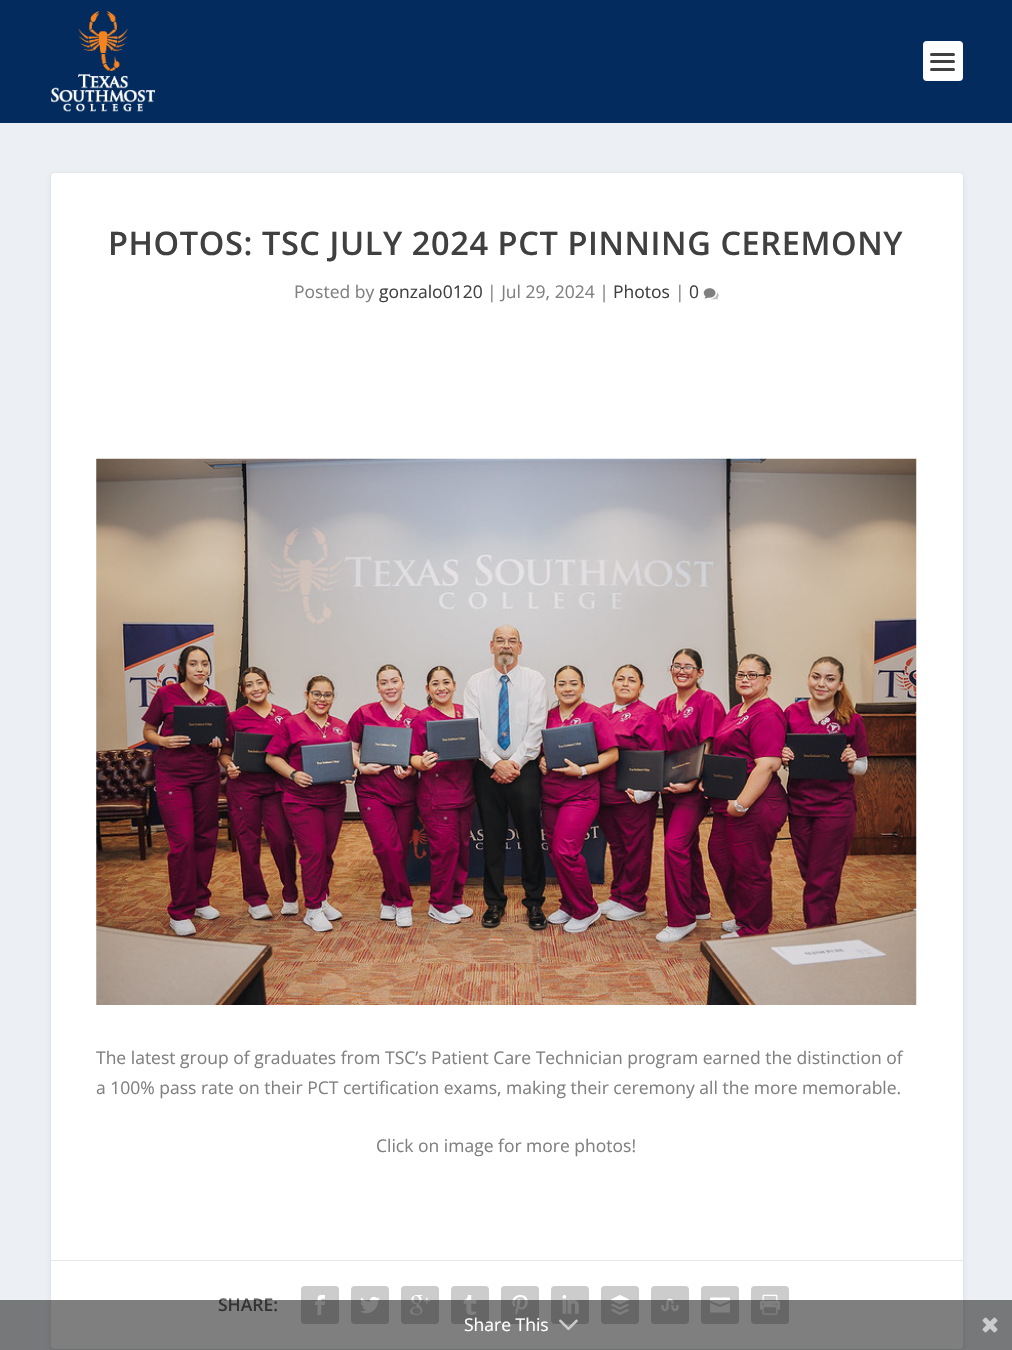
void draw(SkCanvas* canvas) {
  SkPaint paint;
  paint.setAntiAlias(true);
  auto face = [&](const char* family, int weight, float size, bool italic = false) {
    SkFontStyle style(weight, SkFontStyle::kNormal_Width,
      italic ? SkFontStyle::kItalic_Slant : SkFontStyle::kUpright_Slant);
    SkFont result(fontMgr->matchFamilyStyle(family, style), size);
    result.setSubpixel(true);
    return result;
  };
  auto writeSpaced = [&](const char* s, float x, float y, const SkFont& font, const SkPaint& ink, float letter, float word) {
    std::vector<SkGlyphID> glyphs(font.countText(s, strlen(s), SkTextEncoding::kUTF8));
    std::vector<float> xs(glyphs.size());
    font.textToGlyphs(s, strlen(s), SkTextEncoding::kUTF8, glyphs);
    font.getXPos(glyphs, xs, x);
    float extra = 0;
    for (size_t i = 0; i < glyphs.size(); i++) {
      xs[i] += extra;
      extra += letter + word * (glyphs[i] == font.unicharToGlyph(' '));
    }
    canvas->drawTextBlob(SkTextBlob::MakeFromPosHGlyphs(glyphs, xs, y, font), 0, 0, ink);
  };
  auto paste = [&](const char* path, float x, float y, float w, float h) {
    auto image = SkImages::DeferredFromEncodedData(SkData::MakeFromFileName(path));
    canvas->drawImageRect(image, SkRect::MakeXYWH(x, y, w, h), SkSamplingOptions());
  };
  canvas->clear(0xffecf0f5);
  paint.setColor(0xff042b5e);
  canvas->drawRect(SkRect::MakeXYWH(0, 0, 1012, 123), paint);
  paste("img/1.png", 51, 11, 104, 101);
  paint.setColor(0xffffffff);
  canvas->drawRoundRect(SkRect::MakeXYWH(923, 41, 40, 40), 4, 4, paint);
  paint.setColor(0xff404040);
  canvas->drawRoundRect(SkRect::MakeXYWH(930, 53, 25, 3), 1.5f, 1.5f, paint);
  canvas->drawRoundRect(SkRect::MakeXYWH(930, 60, 25, 3), 1.5f, 1.5f, paint);
  canvas->drawRoundRect(SkRect::MakeXYWH(930, 68, 25, 3), 1.5f, 1.5f, paint);
  paint.setColor(0x1a000000);
  paint.setMaskFilter(SkMaskFilter::MakeBlur(kNormal_SkBlurStyle, 2));
  canvas->drawRoundRect(SkRect::MakeXYWH(51, 174, 912, 1176), 4, 4, paint);
  paint.setMaskFilter(nullptr);
  paint.setColor(0xffffffff);
  canvas->drawRoundRect(SkRect::MakeXYWH(51, 173, 912, 1176), 4, 4, paint);
  paste("img/2.png", 703, 288, 16, 12);
  paste("img/3.png", 96, 458, 821, 547);
  paint.setColor(0xffe6e6e6);
  canvas->drawRect(SkRect::MakeXYWH(51, 1260, 912, 1), paint);
  paint.setColor(0xffcccccc);
  canvas->drawRoundRect(SkRect::MakeXYWH(301, 1286, 38, 38), 4, 4, paint);
  paste("img/4.png", 315, 1295, 10, 20);
  canvas->drawRoundRect(SkRect::MakeXYWH(351, 1286, 38, 38), 4, 4, paint);
  paste("img/5.png", 360, 1296, 20, 18);
  canvas->drawRoundRect(SkRect::MakeXYWH(401, 1286, 38, 38), 4, 4, paint);
  paste("img/6.png", 410, 1295, 20, 20);
  canvas->drawRoundRect(SkRect::MakeXYWH(451, 1286, 38, 38), 4, 4, paint);
  paste("img/7.png", 463, 1295, 14, 20);
  canvas->drawRoundRect(SkRect::MakeXYWH(501, 1286, 38, 38), 4, 4, paint);
  paste("img/8.png", 512, 1295, 16, 20);
  canvas->drawRoundRect(SkRect::MakeXYWH(551, 1286, 38, 38), 4, 4, paint);
  paste("img/9.png", 562, 1295, 17, 19);
  canvas->drawRoundRect(SkRect::MakeXYWH(601, 1286, 38, 38), 4, 4, paint);
  paste("img/10.png", 610, 1295, 20, 20);
  canvas->drawRoundRect(SkRect::MakeXYWH(651, 1286, 38, 38), 4, 4, paint);
  paste("img/11.png", 661, 1298, 18, 14);
  canvas->drawRoundRect(SkRect::MakeXYWH(701, 1286, 38, 38), 4, 4, paint);
  paste("img/12.png", 710, 1297, 20, 16);
  canvas->drawRoundRect(SkRect::MakeXYWH(751, 1286, 38, 38), 4, 4, paint);
  paste("img/13.png", 760, 1294, 20, 21);
  auto f0 = face("Open Sans", 600, 32.5f);
  paint.setColor(0xff404040);
  writeSpaced("PHOTOS: TSC JULY 2024 PCT PINNING CEREMONY", 108, 255, f0, paint, 0.6f, 0);
  auto f1 = face("Open Sans", 400, 17.5f);
  paint.setColor(0xff808080);
  canvas->drawString("Posted by", 294, 298, f1, paint);
  paint.setColor(0xff404040);
  canvas->drawString("gonzalo0120", 379, 298, f1, paint);
  paint.setColor(0xff808080);
  canvas->drawString("| Jul 29, 2024 |", 487, 298, f1, paint);
  paint.setColor(0xff404040);
  canvas->drawString("Photos", 613, 298, f1, paint);
  paint.setColor(0xff808080);
  canvas->drawString("|", 675, 298, f1, paint);
  paint.setColor(0xff404040);
  canvas->drawString("0", 689, 298, f1, paint);
  paint.setColor(0xff808080);
  {
    const struct { const char* s; float x, y; } items[] = {
      {"The latest group of graduates from TSC’s Patient Care Technician program earned the distinction of", 96, 1064},
      {"a 100% pass rate on their PCT certification exams, making their ceremony all the more memorable.", 96, 1094},
      {"Click on image for more photos!", 376, 1152},
    };
    for (auto [s, x, y] : items) {
      canvas->drawString(s, x, y, f1, paint);
    }
  }
  auto f2 = face("Open Sans", 600, 17.5f);
  paint.setColor(0xff666666);
  canvas->drawString("SHARE:", 218, 1311, f2, paint);
  paint.setColor(0x80000000);
  canvas->drawRect(SkRect::MakeXYWH(0, 1300, 1012, 50), paint);
  paint.setColor(0xffffffff);
  canvas->drawString("Share This", 464, 1331, f1, paint);
  paste("img/14.png", 559, 1319, 19, 12);
  paste("img/15.png", 982, 1317, 16, 16);
}
